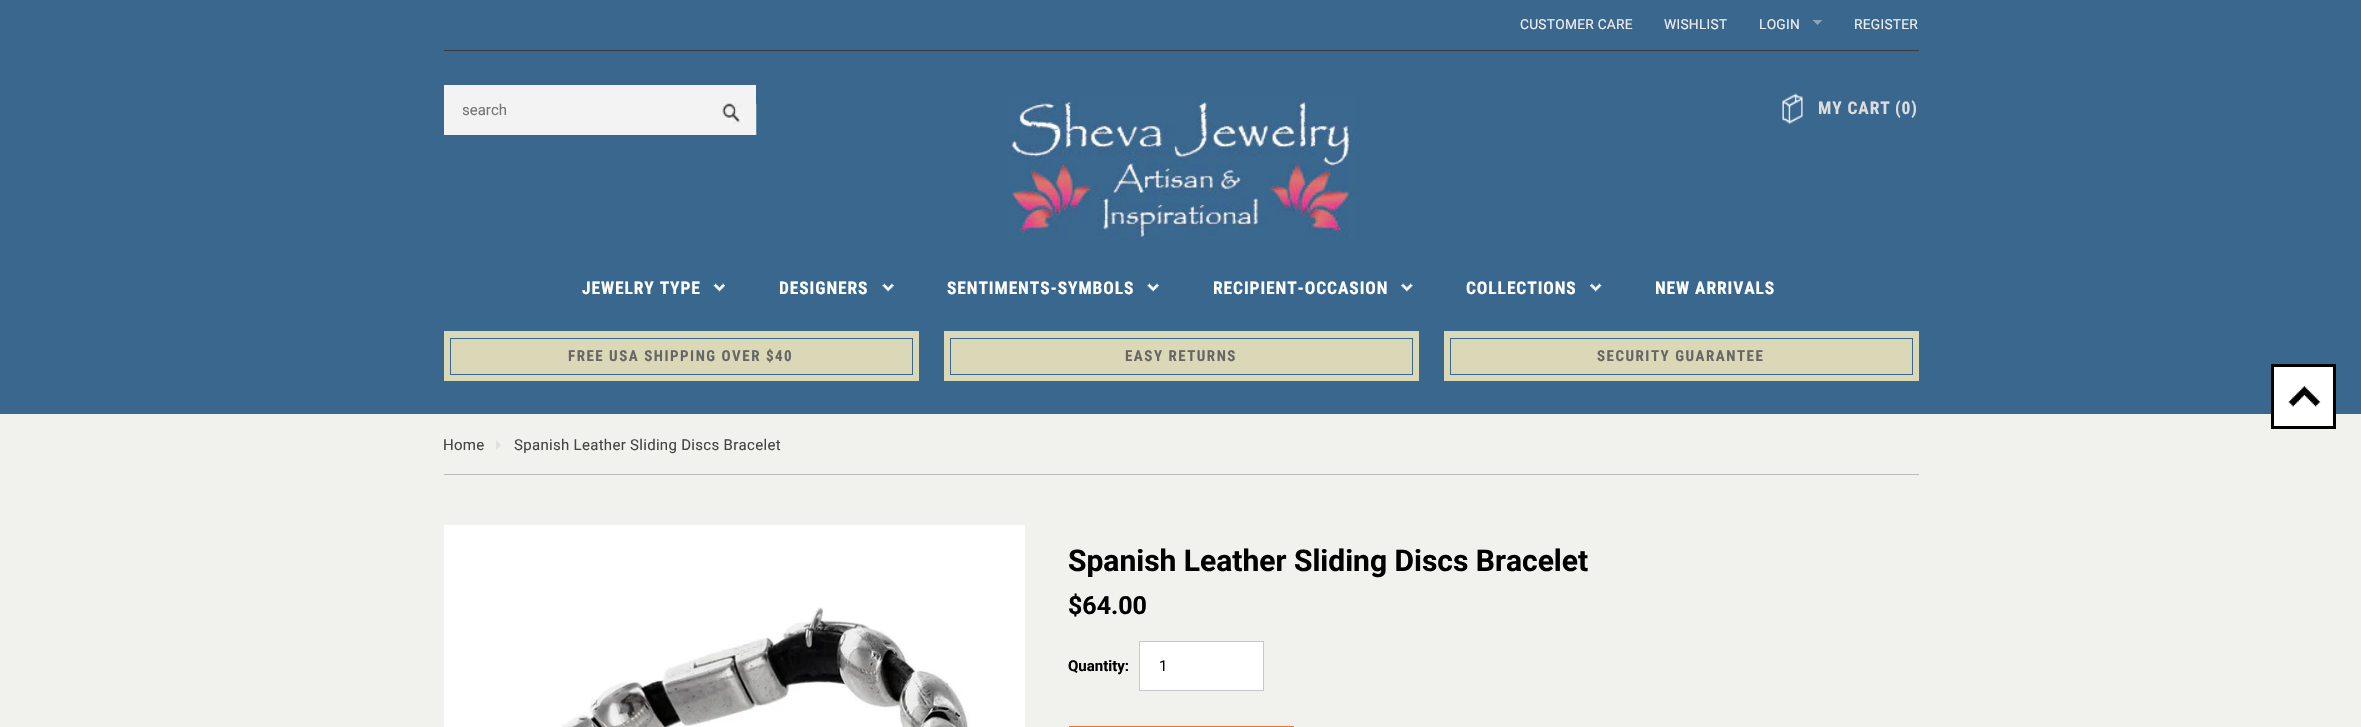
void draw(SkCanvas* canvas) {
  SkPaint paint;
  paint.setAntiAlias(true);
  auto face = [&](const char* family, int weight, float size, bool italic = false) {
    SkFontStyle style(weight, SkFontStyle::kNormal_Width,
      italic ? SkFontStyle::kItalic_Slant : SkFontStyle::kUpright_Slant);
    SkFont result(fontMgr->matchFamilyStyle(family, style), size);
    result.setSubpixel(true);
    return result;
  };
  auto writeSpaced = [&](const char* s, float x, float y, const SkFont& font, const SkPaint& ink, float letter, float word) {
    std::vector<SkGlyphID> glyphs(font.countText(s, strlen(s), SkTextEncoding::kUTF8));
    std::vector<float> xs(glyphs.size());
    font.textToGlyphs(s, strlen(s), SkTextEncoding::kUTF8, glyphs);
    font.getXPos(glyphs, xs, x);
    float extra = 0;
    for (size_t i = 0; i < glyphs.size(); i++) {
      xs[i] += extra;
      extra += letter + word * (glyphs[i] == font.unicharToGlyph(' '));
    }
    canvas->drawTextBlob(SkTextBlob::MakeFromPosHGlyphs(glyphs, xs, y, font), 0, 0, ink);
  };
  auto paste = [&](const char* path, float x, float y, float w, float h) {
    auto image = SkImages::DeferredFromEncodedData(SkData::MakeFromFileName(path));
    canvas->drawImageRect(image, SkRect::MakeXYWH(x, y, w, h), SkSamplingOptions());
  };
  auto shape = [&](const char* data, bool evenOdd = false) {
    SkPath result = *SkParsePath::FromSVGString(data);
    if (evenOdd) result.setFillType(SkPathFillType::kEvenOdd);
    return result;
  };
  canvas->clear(0xfff1f1ed);
  paint.setColor(0xff3a678e);
  canvas->drawRect(SkRect::MakeXYWH(0, 0, 2361, 414), paint);
  paint.setColor(0xff3a3a3a);
  canvas->drawRect(SkRect::MakeXYWH(444, 50, 1475, 1), paint);
  paint.setColor(0xff8ca2b6);
  canvas->drawPath(shape("M1812.5 20H1822.5L1817.5 25Z"), paint);
  paint.setColor(0xfff3f3f3);
  canvas->drawRect(SkRect::MakeXYWH(444, 85, 312, 50), paint);
  paste("img/1.png", 722, 103, 35, 32);
  paste("img/2.png", 1007, 95, 349, 144);
  paste("img/3.png", 1782, 93, 21, 31);
  paste("img/4.png", 713, 283, 12, 9);
  paste("img/5.png", 882, 283, 12, 9);
  paste("img/6.png", 1147, 283, 12, 9);
  paste("img/7.png", 1401, 283, 12, 9);
  paste("img/8.png", 1590, 283, 12, 9);
  paint.setColor(0xffdbd8b7);
  canvas->drawRect(SkRect::MakeXYWH(444, 331, 475, 50), paint);
  paint.setStroke(true);
  paint.setStrokeWidth(1);
  paint.setColor(0xff3a678e);
  canvas->drawRect(SkRect::MakeXYWH(450.5f, 338.5f, 462, 36), paint);
  paint.setStroke(false);
  paint.setColor(0xffdbd8b7);
  canvas->drawRect(SkRect::MakeXYWH(944, 331, 475, 50), paint);
  paint.setStroke(true);
  paint.setColor(0xff3a678e);
  canvas->drawRect(SkRect::MakeXYWH(950.5f, 338.5f, 462, 36), paint);
  paint.setStroke(false);
  paint.setColor(0xffdbd8b7);
  canvas->drawRect(SkRect::MakeXYWH(1444, 331, 475, 50), paint);
  paint.setStroke(true);
  paint.setColor(0xff3a678e);
  canvas->drawRect(SkRect::MakeXYWH(1450.5f, 338.5f, 462, 36), paint);
  paint.setStroke(false);
  paint.setColor(0xffffffff);
  canvas->drawRect(SkRect::MakeXYWH(2274, 367, 59, 59), paint);
  paste("img/9.png", 2288, 386, 33, 21);
  paint.setStroke(true);
  paint.setStrokeWidth(3);
  paint.setColor(0xff000000);
  canvas->drawRect(SkRect::MakeXYWH(2272.5f, 365.5f, 62, 62), paint);
  paint.setStroke(false);
  paint.setColor(0xffbbbbbb);
  canvas->drawRect(SkRect::MakeXYWH(444, 474, 1475, 1), paint);
  paint.setColor(0xffe0e0e0);
  canvas->drawPath(shape("M496 450V440L501 445Z"), paint);
  paste("img/10.png", 444, 525, 581, 202);
  paint.setColor(0xffffffff);
  canvas->drawRect(SkRect::MakeXYWH(1139.5f, 641.5f, 124, 49), paint);
  paint.setStroke(true);
  paint.setStrokeWidth(1);
  paint.setColor(0xffc8c8c8);
  canvas->drawRect(SkRect::MakeXYWH(1139.5f, 641.5f, 124, 49), paint);
  paint.setStroke(false);
  paint.setColor(0xfff47421);
  canvas->drawRect(SkRect::MakeXYWH(1069, 726, 225, 1), paint);
  auto f0 = face("Roboto", 400, 13.75f);
  paint.setColor(0xffeeeeee);
  {
    const struct { const char* s; float x, y; } items[] = {
      {"CUSTOMER CARE", 1520, 29},
      {"WISHLIST", 1664, 29},
      {"LOGIN", 1759, 29},
      {"REGISTER", 1854, 29},
    };
    for (auto [s, x, y] : items) {
      writeSpaced(s, x, y, f0, paint, 0.25f, 0);
    }
  }
  canvas->save();
  canvas->clipRect(SkRect::MakeXYWH(463, 101, 243, 18));
  auto f1 = face("Roboto", 400, 15);
  paint.setColor(0xff757575);
  canvas->drawString("search", 462, 115, f1, paint);
  canvas->restore();
  auto f2 = face("Roboto Condensed", 700, 17.5f);
  paint.setColor(0xffdddddd);
  writeSpaced("MY CART", 1818, 114, f2, paint, 0.9f, 0);
  writeSpaced("(0)", 1895, 114, f2, paint, 0.9f, 0);
  paint.setColor(0xffffffff);
  {
    const struct { const char* s; float x, y; } items[] = {
      {"JEWELRY TYPE", 582, 294},
      {"DESIGNERS", 779, 294},
      {"SENTIMENTS-SYMBOLS", 947, 294},
      {"RECIPIENT-OCCASION", 1213, 294},
      {"COLLECTIONS", 1466, 294},
      {"NEW ARRIVALS", 1655, 294},
    };
    for (auto [s, x, y] : items) {
      writeSpaced(s, x, y, f2, paint, 0.9f, 0);
    }
  }
  auto f3 = face("Roboto Condensed", 700, 15);
  paint.setColor(0xff666666);
  {
    const struct { const char* s; float x, y; } items[] = {
      {"FREE USA SHIPPING OVER $40", 568, 361},
      {"EASY RETURNS", 1125, 361},
      {"SECURITY GUARANTEE", 1597, 361},
    };
    for (auto [s, x, y] : items) {
      writeSpaced(s, x, y, f3, paint, 1.5f, 0);
    }
  }
  paint.setColor(0xff444444);
  writeSpaced("Home", 443, 450, f1, paint, 0.3f, 0);
  writeSpaced("Spanish Leather Sliding Discs Bracelet", 514, 450, f1, paint, 0.3f, 0);
  auto f4 = face("Roboto", 700, 30);
  paint.setColor(0xff000000);
  canvas->drawString("Spanish Leather Sliding Discs Bracelet", 1068, 571, f4, paint);
  auto f5 = face("Roboto", 700, 25);
  canvas->drawString("$64.00", 1068, 614, f5, paint);
  auto f6 = face("Roboto", 700, 15);
  canvas->drawString("Quantity:", 1068, 671, f6, paint);
  canvas->drawString("1", 1159, 671, f1, paint);
}
